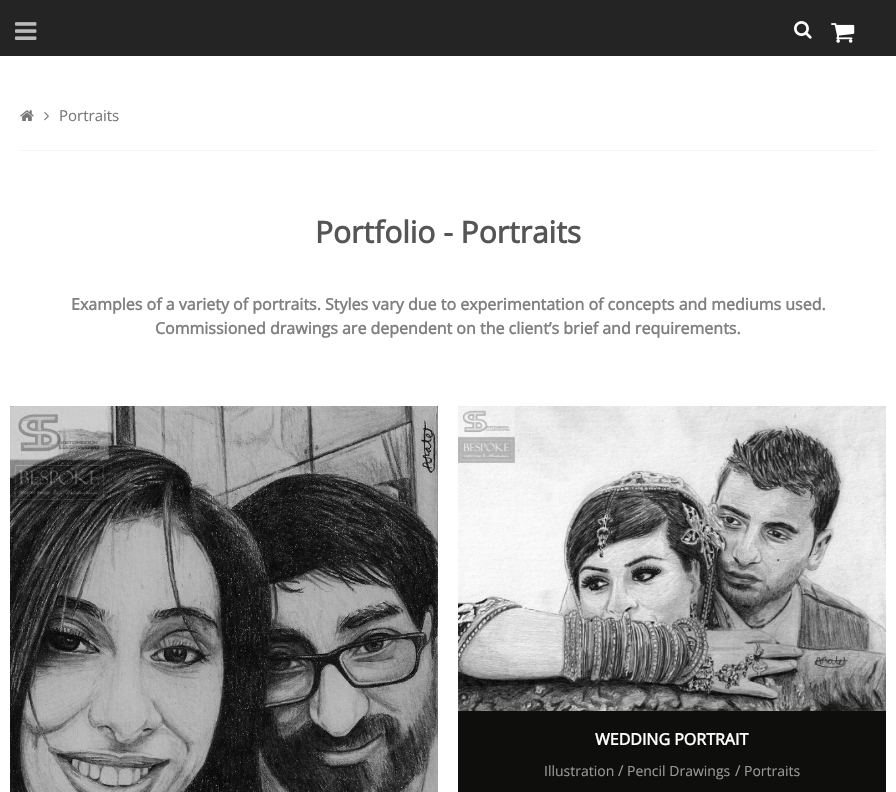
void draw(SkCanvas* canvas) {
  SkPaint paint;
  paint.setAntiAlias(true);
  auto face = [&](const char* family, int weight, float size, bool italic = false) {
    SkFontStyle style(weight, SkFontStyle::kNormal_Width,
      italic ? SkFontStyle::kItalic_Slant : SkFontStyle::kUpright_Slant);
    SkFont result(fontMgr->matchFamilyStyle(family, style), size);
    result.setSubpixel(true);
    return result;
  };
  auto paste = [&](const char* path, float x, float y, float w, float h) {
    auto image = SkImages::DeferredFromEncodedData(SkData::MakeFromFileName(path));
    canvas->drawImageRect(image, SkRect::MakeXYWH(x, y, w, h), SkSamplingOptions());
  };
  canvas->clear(0xffffffff);
  paint.setColor(0xff242424);
  canvas->drawRect(SkRect::MakeXYWH(0, 0, 896, 56), paint);
  paste("img/1.png", 15, 22, 22, 18);
  paste("img/2.png", 794, 21, 18, 18);
  paste("img/3.png", 831, 23, 24, 20);
  paint.setColor(0xfff6f6f6);
  canvas->drawRect(SkRect::MakeXYWH(20, 150, 856, 1), paint);
  paste("img/4.png", 20, 110, 14, 11);
  paste("img/5.png", 44, 112, 5, 9);
  paste("img/6.png", 10, 406, 428, 386);
  paste("img/7.png", 458, 406, 428, 305);
  paint.setColor(0xff0e0e0d);
  canvas->drawRect(SkRect::MakeXYWH(458, 711, 428, 81), paint);
  auto f0 = face("Open Sans", 400, 15);
  paint.setColor(0xff777777);
  canvas->drawString("Portraits", 59, 121, f0, paint);
  auto f1 = face("Open Sans", 700, 30);
  paint.setColor(0xff555555);
  canvas->drawString("Portfolio - Portraits", 315, 243, f1, paint);
  auto f2 = face("Open Sans", 700, 16);
  paint.setColor(0xff808080);
  canvas->drawString("Examples of a variety of portraits. Styles vary due to experimentation of concepts and mediums used.", 71, 310, f2, paint);
  canvas->drawString("Commissioned drawings are dependent on the client’s brief and requirements.", 155, 334, f2, paint);
  paint.setColor(0xffffffff);
  canvas->drawString("WEDDING PORTRAIT", 595, 745, f2, paint);
  auto f3 = face("Open Sans", 400, 14);
  paint.setColor(0xff999999);
  canvas->drawString("Illustration", 544, 776, f3, paint);
  canvas->drawString("/", 618, 776, f0, paint);
  canvas->drawString("Pencil Drawings", 627, 776, f3, paint);
  canvas->drawString("/", 735, 776, f0, paint);
  canvas->drawString("Portraits", 744, 776, f3, paint);
}
